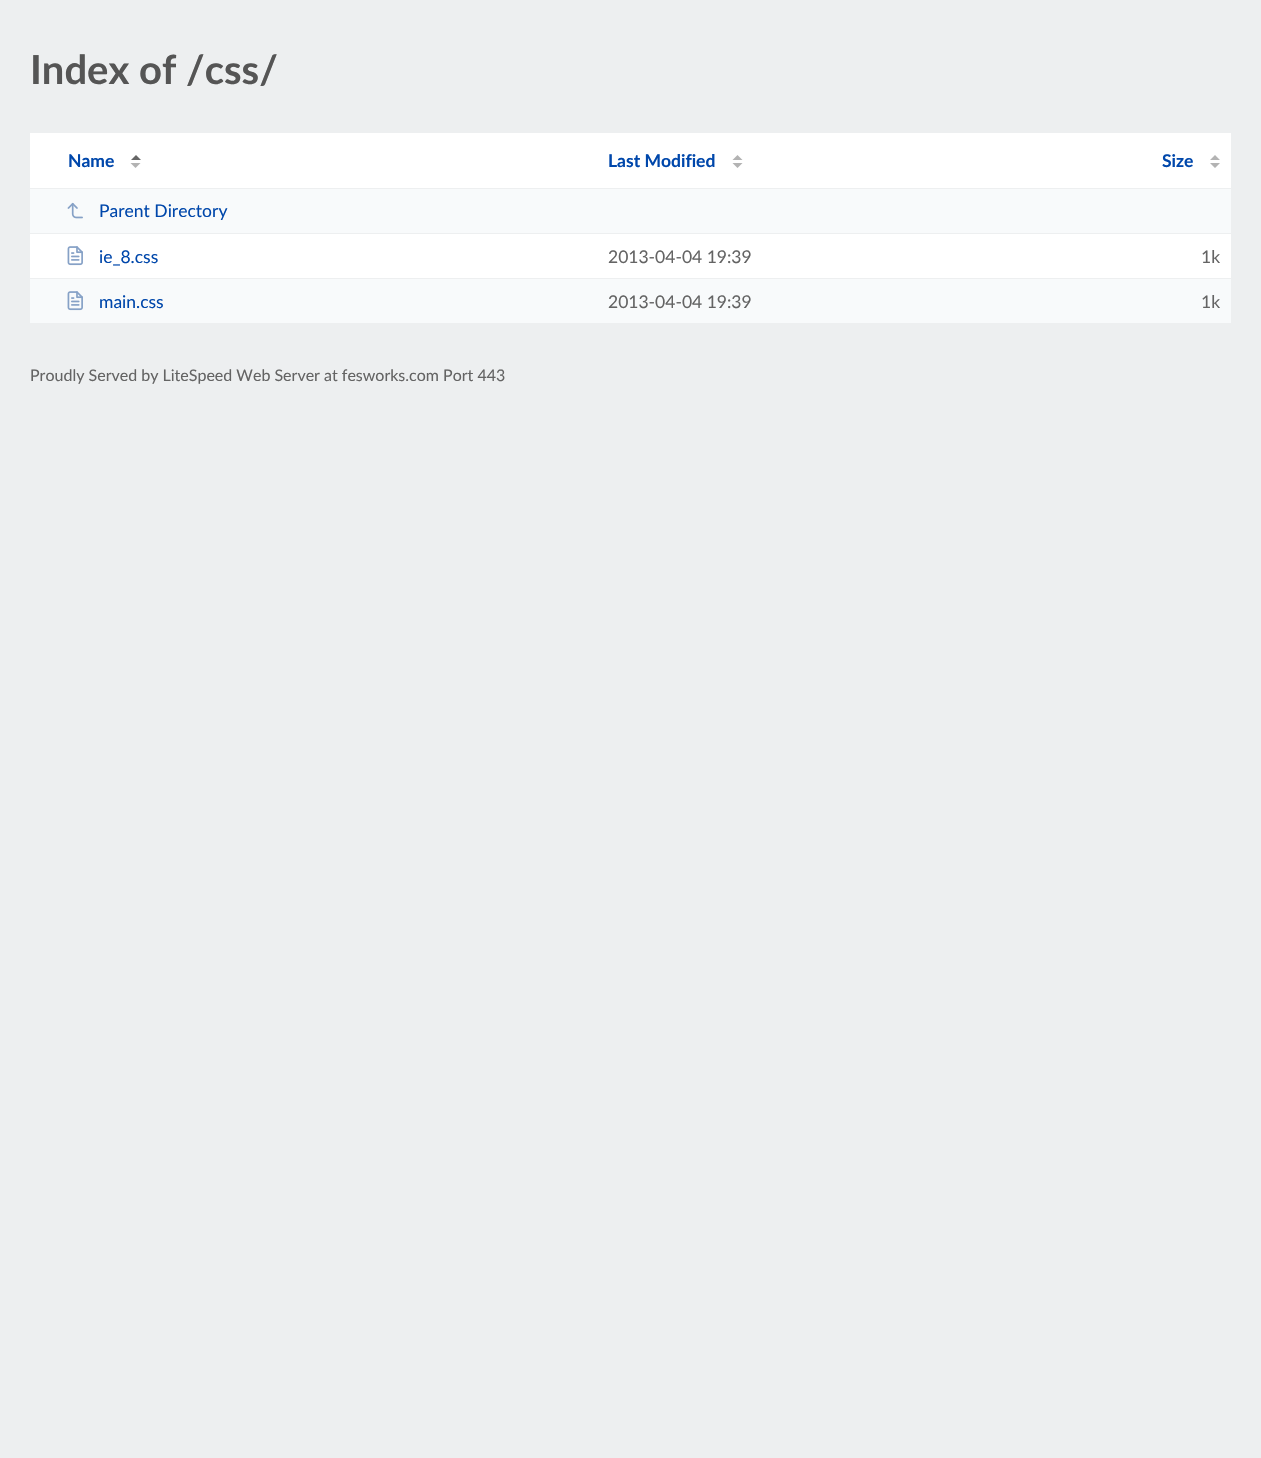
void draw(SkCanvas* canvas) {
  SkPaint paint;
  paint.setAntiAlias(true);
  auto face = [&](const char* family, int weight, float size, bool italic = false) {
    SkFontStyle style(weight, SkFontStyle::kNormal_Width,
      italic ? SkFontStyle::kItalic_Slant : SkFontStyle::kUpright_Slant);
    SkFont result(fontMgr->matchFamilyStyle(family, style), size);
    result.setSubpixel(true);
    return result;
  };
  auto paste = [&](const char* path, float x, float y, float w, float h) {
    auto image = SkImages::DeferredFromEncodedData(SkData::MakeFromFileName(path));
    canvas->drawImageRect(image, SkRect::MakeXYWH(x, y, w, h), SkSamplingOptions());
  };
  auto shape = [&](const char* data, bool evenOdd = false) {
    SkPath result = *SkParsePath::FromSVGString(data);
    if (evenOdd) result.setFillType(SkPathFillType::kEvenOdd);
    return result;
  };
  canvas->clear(0xffedeff0);
  paint.setColor(0xffffffff);
  canvas->drawRect(SkRect::MakeXYWH(30, 133, 1201, 145), paint);
  paint.setColor(0xff666666);
  canvas->drawPath(shape("M141 160H131L136 155Z"), paint);
  paint.setColor(0xffb3b3b3);
  canvas->drawPath(shape("M130.5 163H140.5L135.5 168Z"), paint);
  canvas->drawPath(shape("M742.5 160H732.5L737.5 155ZM732.5 163H742.5L737.5 168Z"), paint);
  canvas->drawPath(shape("M1220 160H1210L1215 155ZM1210 163H1220L1215 168Z"), paint);
  {
    const struct { float x, y, w, h; SkColor color; } items[] = {
      {30, 189, 1201, 44, 0xfff8fafb},
      {30, 188, 1201, 1, 0xffedeff0},
      {30, 233, 1201, 1, 0xffedeff0},
    };
    for (auto [x, y, w, h, color] : items) {
      paint.setColor(color);
      canvas->drawRect(SkRect::MakeXYWH(x, y, w, h), paint);
    }
  }
  paste("img/1.png", 67, 202, 16, 17);
  paste("img/2.png", 67, 246, 16, 20);
  paint.setColor(0xfff8fafb);
  canvas->drawRect(SkRect::MakeXYWH(30, 279, 1201, 44), paint);
  paste("img/3.png", 67, 291, 16, 20);
  auto f0 = face("Lato", 700, 40);
  paint.setColor(0xff555555);
  canvas->drawString("Index of /css/", 30, 84, f0, paint);
  auto f1 = face("Lato", 700, 17.5f);
  paint.setColor(0xff0047ab);
  {
    const struct { const char* s; float x, y; } items[] = {
      {"Name", 68, 167},
      {"Last Modified", 608, 167},
      {"Size", 1162, 167},
    };
    for (auto [s, x, y] : items) {
      canvas->drawString(s, x, y, f1, paint);
    }
  }
  auto f2 = face("Lato", 400, 17.5f);
  canvas->drawString("Parent Directory", 99, 217, f2, paint);
  canvas->drawString("ie_8.css", 99, 263, f2, paint);
  paint.setColor(0xff646464);
  canvas->drawString("2013-04-04 19:39", 608, 263, f2, paint);
  canvas->drawString("1k", 1201, 263, f2, paint);
  paint.setColor(0xff0047ab);
  canvas->drawString("main.css", 99, 308, f2, paint);
  paint.setColor(0xff646464);
  canvas->drawString("2013-04-04 19:39", 608, 308, f2, paint);
  canvas->drawString("1k", 1201, 308, f2, paint);
  auto f3 = face("Lato", 400, 16);
  canvas->drawString("Proudly Served by LiteSpeed Web Server at fesworks.com Port 443", 30, 381, f3, paint);
}
